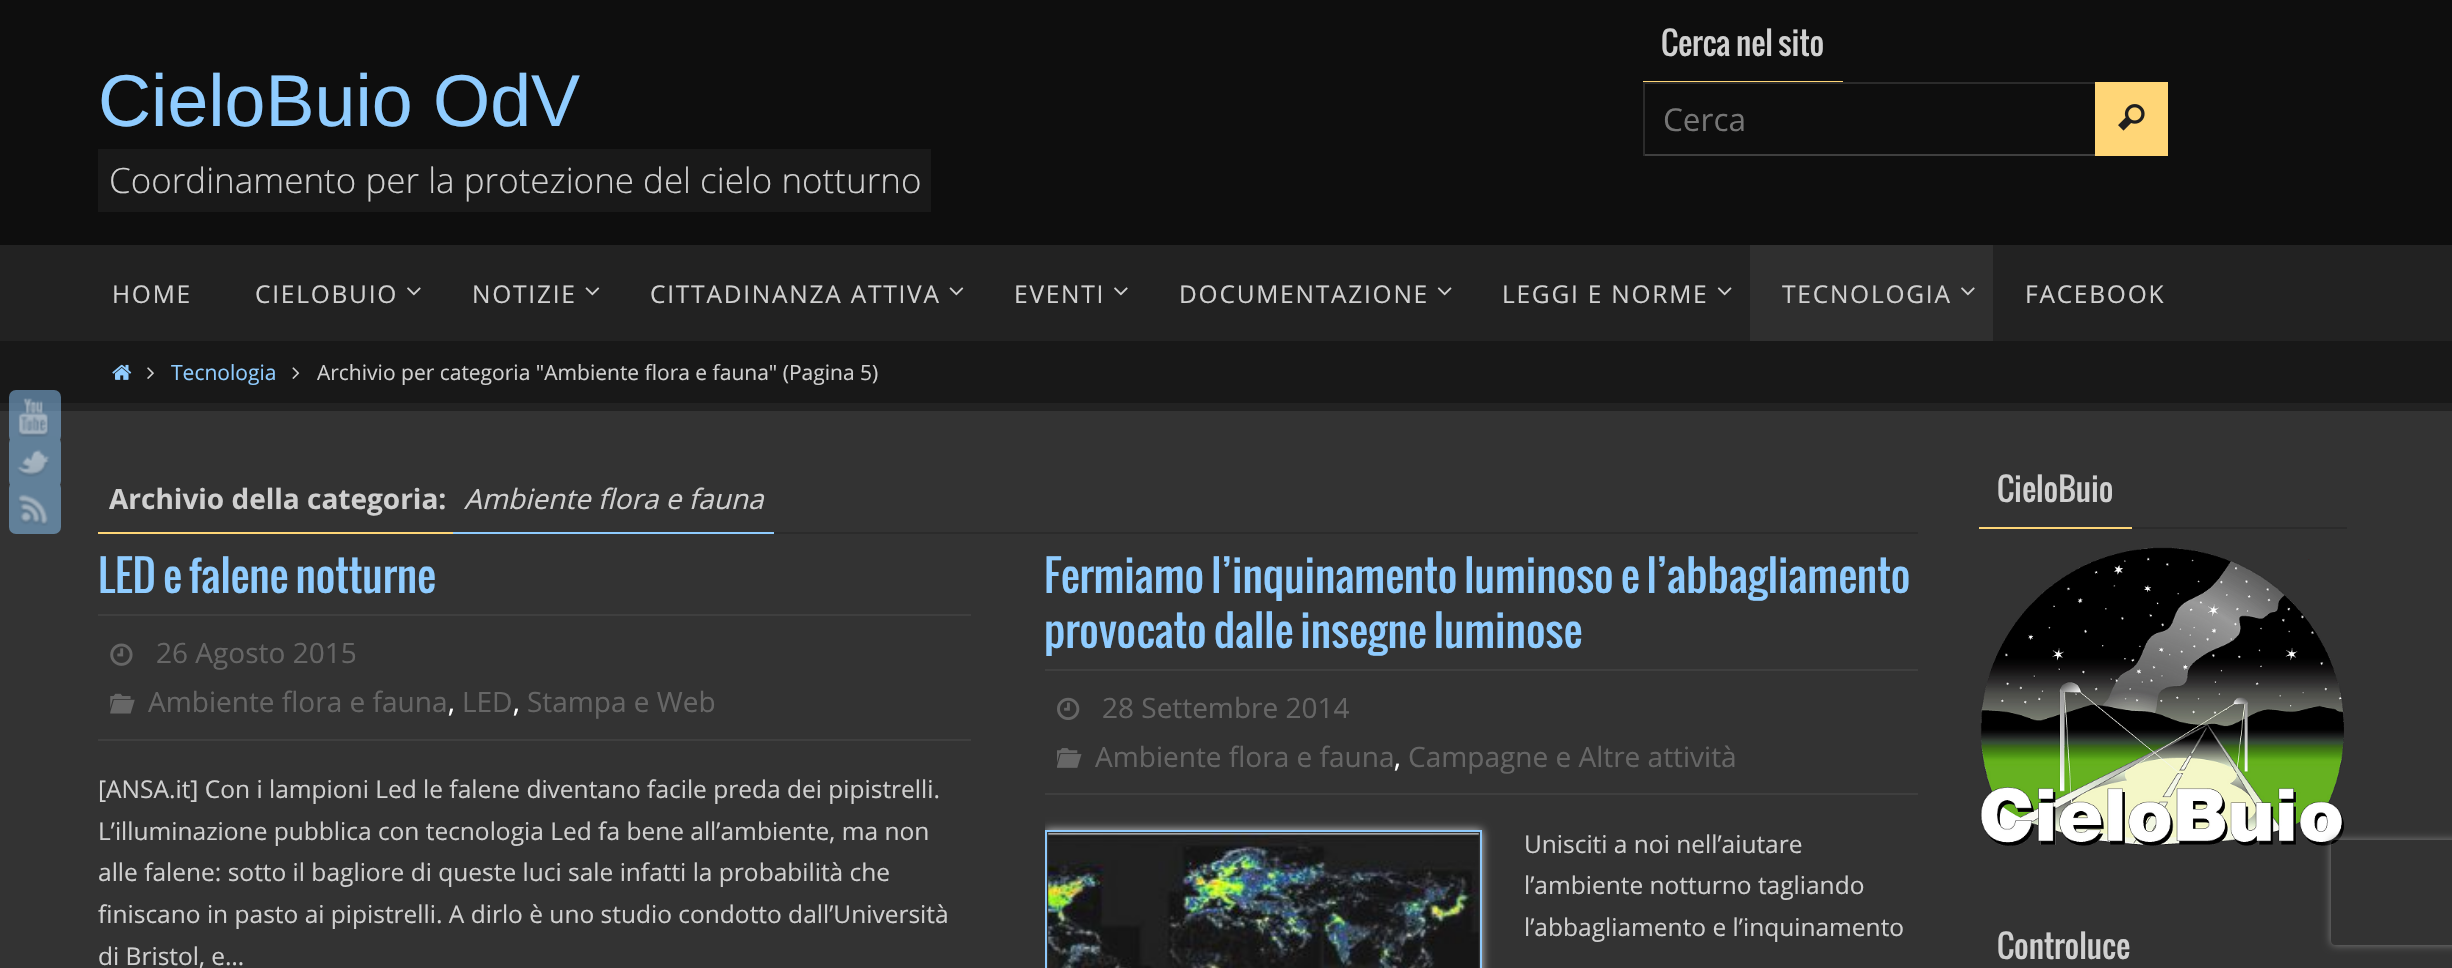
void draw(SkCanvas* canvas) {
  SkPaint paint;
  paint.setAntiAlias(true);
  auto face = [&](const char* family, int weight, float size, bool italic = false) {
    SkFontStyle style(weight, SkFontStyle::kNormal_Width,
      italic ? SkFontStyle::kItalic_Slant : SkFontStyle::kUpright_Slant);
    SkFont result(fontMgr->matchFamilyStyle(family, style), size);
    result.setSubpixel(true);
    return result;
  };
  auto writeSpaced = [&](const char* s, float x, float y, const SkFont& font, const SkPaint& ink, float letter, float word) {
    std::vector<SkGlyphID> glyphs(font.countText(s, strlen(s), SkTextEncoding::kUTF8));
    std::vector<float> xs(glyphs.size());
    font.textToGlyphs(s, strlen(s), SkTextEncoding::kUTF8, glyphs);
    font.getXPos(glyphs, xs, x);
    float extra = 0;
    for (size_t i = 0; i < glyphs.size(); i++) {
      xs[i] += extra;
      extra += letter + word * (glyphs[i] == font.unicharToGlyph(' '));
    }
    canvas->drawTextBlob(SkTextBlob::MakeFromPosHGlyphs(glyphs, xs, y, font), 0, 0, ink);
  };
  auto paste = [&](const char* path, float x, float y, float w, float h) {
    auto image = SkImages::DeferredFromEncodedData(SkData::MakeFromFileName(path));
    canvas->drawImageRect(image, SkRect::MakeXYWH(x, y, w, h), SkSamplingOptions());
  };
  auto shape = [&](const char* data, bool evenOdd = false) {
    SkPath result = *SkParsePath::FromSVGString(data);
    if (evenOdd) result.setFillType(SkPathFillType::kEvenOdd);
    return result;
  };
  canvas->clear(0xff222222);
  {
    const struct { float x, y, w, h; SkColor color; } items[] = {
      {0, 0, 2452, 245, 0xff0e0e0e},
      {98, 149, 833, 63, 0xff191919},
      {1643, 81, 200, 1, 0xffffd677},
      {2095, 82, 73, 74, 0xffffd677},
      {1643, 82, 452, 2, 0xff2b2b2b},
      {1643, 154, 452, 2, 0xff3f3f3f},
      {1643, 82, 2, 74, 0xff2b2b2b},
    };
    for (auto [x, y, w, h, color] : items) {
      paint.setColor(color);
      canvas->drawRect(SkRect::MakeXYWH(x, y, w, h), paint);
    }
  }
  paste("img/1.png", 2118, 104, 27, 27);
  paste("img/2.png", 407, 287, 14, 9);
  paste("img/3.png", 585, 287, 15, 9);
  paste("img/3.png", 949, 287, 15, 9);
  paste("img/2.png", 1114, 287, 14, 9);
  paste("img/4.png", 1437, 287, 15, 9);
  paste("img/4.png", 1717, 287, 15, 9);
  paint.setColor(0xff2f2f2f);
  canvas->drawRect(SkRect::MakeXYWH(1750, 245, 243, 96), paint);
  paste("img/5.png", 1961, 287, 14, 9);
  paint.setColor(0xff181818);
  canvas->drawRect(SkRect::MakeXYWH(0, 341, 2452, 62), paint);
  paste("img/6.png", 112, 364, 20, 16);
  paste("img/7.png", 147, 367, 7, 12);
  paste("img/8.png", 292, 367, 8, 12);
  paint.setColor(0xff333333);
  canvas->drawRect(SkRect::MakeXYWH(0, 411, 2452, 557), paint);
  paint.setColor(0x808fccff);
  canvas->drawRoundRect(SkRect::MakeXYWH(9, 390, 52, 53), 7, 7, paint);
  paint.setColor(0xff618099);
  canvas->drawRoundRect(SkRect::MakeXYWH(9, 436, 52, 52), 7, 7, paint);
  paste("img/9.png", 18, 398, 31, 39);
  paste("img/10.png", 17, 449, 33, 28);
  canvas->drawRoundRect(SkRect::MakeXYWH(9, 481, 52, 53), 7, 7, paint);
  paste("img/11.png", 18, 494, 30, 32);
  {
    const struct { float x, y, w, h; SkColor color; } items[] = {
      {774, 532, 1144, 2, 0xff2b2b2b},
      {98, 532, 355, 2, 0xffffd677},
      {453, 532, 321, 2, 0xff8fccff},
      {98, 614, 873, 2, 0xff3f3f3f},
      {98, 739, 873, 2, 0xff3f3f3f},
    };
    for (auto [x, y, w, h, color] : items) {
      paint.setColor(color);
      canvas->drawRect(SkRect::MakeXYWH(x, y, w, h), paint);
    }
  }
  paste("img/12.png", 110, 643, 23, 23);
  paste("img/13.png", 110, 693, 25, 21);
  canvas->drawRect(SkRect::MakeXYWH(1045, 669, 873, 2), paint);
  canvas->drawRect(SkRect::MakeXYWH(1045, 793, 873, 2), paint);
  paste("img/14.png", 1057, 697, 23, 23);
  paste("img/15.png", 1057, 748, 25, 20);
  canvas->save();
  canvas->clipRect(SkRect::MakeXYWH(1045, 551, 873, 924));
  canvas->clipPath(shape("M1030 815H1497V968H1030ZM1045 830H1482V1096H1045Z", true), true);
  paint.setColor(0xffcacaca);
  paint.setMaskFilter(SkMaskFilter::MakeBlur(kNormal_SkBlurStyle, 4.5f));
  canvas->drawRect(SkRect::MakeXYWH(1045, 830, 437, 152), paint);
  paint.setMaskFilter(nullptr);
  canvas->restore();
  paint.setStroke(true);
  paint.setStrokeWidth(2);
  paint.setColor(0xff8ecafd);
  canvas->drawRect(SkRect::MakeXYWH(1046, 831, 435, 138), paint);
  paste("img/16.png", 1048, 833, 431, 135);
  paint.setStroke(false);
  paint.setColor(0xff2b2b2b);
  canvas->drawRect(SkRect::MakeXYWH(2132, 527, 215, 2), paint);
  paint.setColor(0xffffd677);
  canvas->drawRect(SkRect::MakeXYWH(1979, 527, 153, 2), paint);
  paste("img/17.png", 1980, 547, 364, 299);
  canvas->save();
  canvas->clipPath(shape("M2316 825H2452V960H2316ZM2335 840H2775C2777 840 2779 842 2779 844V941C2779 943 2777 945 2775 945H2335C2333 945 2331 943 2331 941V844C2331 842 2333 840 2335 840Z", true), true);
  paint.setColor(0xff808080);
  paint.setMaskFilter(SkMaskFilter::MakeBlur(kNormal_SkBlurStyle, 4.5f));
  canvas->drawRoundRect(SkRect::MakeXYWH(2331, 840, 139, 105), 4, 4, paint);
  paint.setMaskFilter(nullptr);
  canvas->restore();
  auto f0 = face("Liberation Sans", 400, 73.5f);
  paint.setColor(0xff8fccff);
  canvas->drawString("CieloBuio OdV", 98, 126, f0, paint);
  auto f1 = face("Open Sans", 300, 35);
  paint.setColor(0xffd0d0d0);
  canvas->drawString("Coordinamento per la protezione del cielo notturno", 109, 193, f1, paint);
  auto f2 = face("Oswald", 400, 31.5f);
  canvas->drawString("Cerca nel sito", 1661, 56, f2, paint);
  auto f3 = face("Open Sans", 400, 31.5f);
  paint.setColor(0xff757575);
  canvas->drawString("Cerca", 1663, 131, f3, paint);
  auto f4 = face("Open Sans", 400, 24.5f);
  paint.setColor(0xffd0d0d0);
  {
    const struct { const char* s; float x, y; } items[] = {
      {"HOME", 112, 303},
      {"CIELOBUIO", 255, 303},
      {"NOTIZIE", 472, 303},
      {"CITTADINANZA ATTIVA", 650, 303},
      {"EVENTI", 1014, 303},
      {"DOCUMENTAZIONE", 1179, 303},
      {"LEGGI E NORME", 1502, 303},
      {"TECNOLOGIA", 1782, 303},
      {"FACEBOOK", 2025, 303},
    };
    for (auto [s, x, y] : items) {
      writeSpaced(s, x, y, f4, paint, 1.75f, 0);
    }
  }
  auto f5 = face("Open Sans", 400, 21);
  paint.setColor(0xff8fccff);
  canvas->drawString("Tecnologia", 171, 380, f5, paint);
  paint.setColor(0xffd0d0d0);
  canvas->drawString("Archivio per categoria \"Ambiente flora e fauna\" (Pagina 5)", 317, 380, f5, paint);
  auto f6 = face("Open Sans", 700, 28);
  canvas->drawString("Archivio della categoria:", 109, 509, f6, paint);
  auto f7 = face("Open Sans", 400, 28, true);
  canvas->drawString("Ambiente flora e fauna", 464, 509, f7, paint);
  auto f8 = face("Oswald", 400, 42);
  paint.setColor(0xff8fccff);
  canvas->drawString("LED e falene notturne", 98, 593, f8, paint);
  auto f9 = face("Open Sans", 400, 28);
  paint.setColor(0xff666666);
  canvas->drawString("26 Agosto 2015", 156, 663, f9, paint);
  canvas->drawString("Ambiente flora e fauna", 148, 712, f9, paint);
  paint.setColor(0xffffffff);
  canvas->drawString(",", 448, 712, f9, paint);
  paint.setColor(0xff666666);
  canvas->drawString("LED", 462, 712, f9, paint);
  paint.setColor(0xffffffff);
  canvas->drawString(",", 513, 712, f9, paint);
  paint.setColor(0xff666666);
  canvas->drawString("Stampa e Web", 527, 712, f9, paint);
  paint.setColor(0xffd0d0d0);
  {
    const struct { const char* s; float x, y; } items[] = {
      {"[ANSA.it] Con i lampioni Led le falene diventano facile preda dei pipistrelli.", 98, 798},
      {"L’illuminazione pubblica con tecnologia Led fa bene all’ambiente, ma non", 98, 840},
      {"alle falene: sotto il bagliore di queste luci sale infatti la probabilità che", 98, 881},
      {"finiscano in pasto ai pipistrelli. A dirlo è uno studio condotto dall’Università", 98, 923},
      {"di Bristol, e…", 98, 965},
    };
    for (auto [s, x, y] : items) {
      canvas->drawString(s, x, y, f4, paint);
    }
  }
  paint.setColor(0xff8fccff);
  canvas->drawString("Fermiamo l’inquinamento luminoso e l’abbagliamento", 1044, 593, f8, paint);
  canvas->drawString("provocato dalle insegne luminose", 1044, 648, f8, paint);
  paint.setColor(0xff666666);
  canvas->drawString("28 Settembre 2014", 1102, 718, f9, paint);
  canvas->drawString("Ambiente flora e fauna", 1095, 767, f9, paint);
  paint.setColor(0xffffffff);
  canvas->drawString(",", 1394, 767, f9, paint);
  paint.setColor(0xff666666);
  canvas->drawString("Campagne e Altre attività", 1408, 767, f9, paint);
  paint.setColor(0xffd0d0d0);
  {
    const struct { const char* s; float x, y; } items[] = {
      {"Unisciti a noi nell’aiutare", 1524, 853},
      {"l’ambiente notturno tagliando", 1524, 894},
      {"l’abbagliamento e l’inquinamento", 1524, 936},
    };
    for (auto [s, x, y] : items) {
      canvas->drawString(s, x, y, f4, paint);
    }
  }
  canvas->drawString("CieloBuio", 1997, 502, f2, paint);
  canvas->drawString("Controluce", 1997, 959, f2, paint);
}
